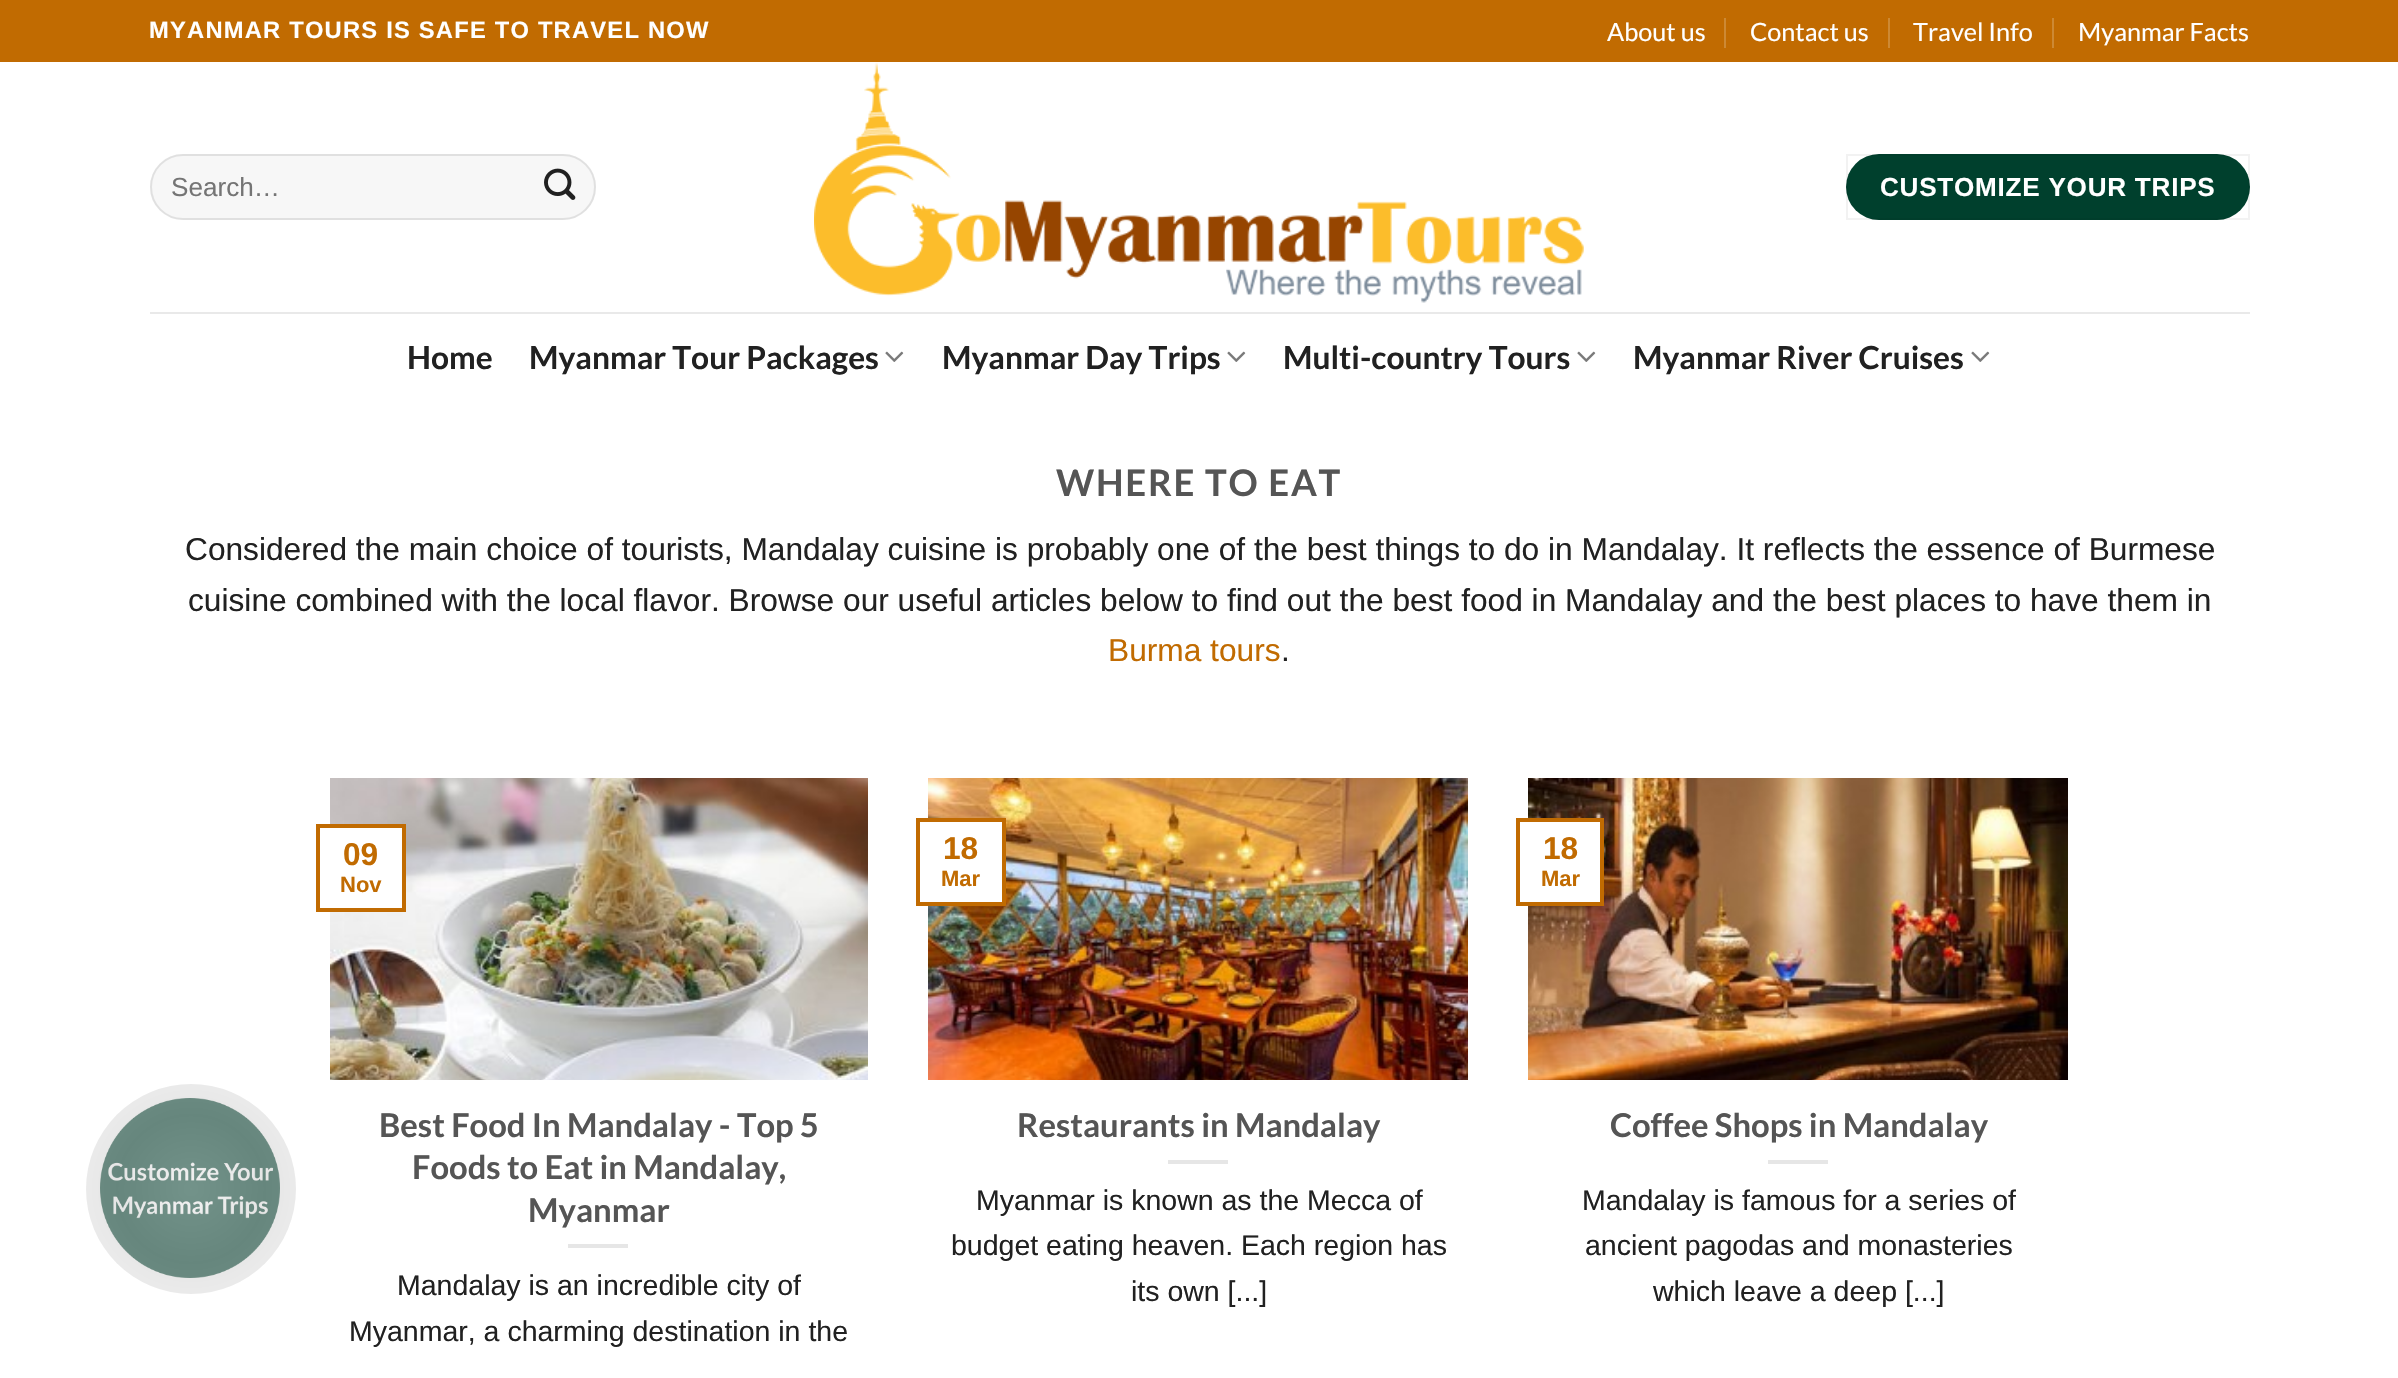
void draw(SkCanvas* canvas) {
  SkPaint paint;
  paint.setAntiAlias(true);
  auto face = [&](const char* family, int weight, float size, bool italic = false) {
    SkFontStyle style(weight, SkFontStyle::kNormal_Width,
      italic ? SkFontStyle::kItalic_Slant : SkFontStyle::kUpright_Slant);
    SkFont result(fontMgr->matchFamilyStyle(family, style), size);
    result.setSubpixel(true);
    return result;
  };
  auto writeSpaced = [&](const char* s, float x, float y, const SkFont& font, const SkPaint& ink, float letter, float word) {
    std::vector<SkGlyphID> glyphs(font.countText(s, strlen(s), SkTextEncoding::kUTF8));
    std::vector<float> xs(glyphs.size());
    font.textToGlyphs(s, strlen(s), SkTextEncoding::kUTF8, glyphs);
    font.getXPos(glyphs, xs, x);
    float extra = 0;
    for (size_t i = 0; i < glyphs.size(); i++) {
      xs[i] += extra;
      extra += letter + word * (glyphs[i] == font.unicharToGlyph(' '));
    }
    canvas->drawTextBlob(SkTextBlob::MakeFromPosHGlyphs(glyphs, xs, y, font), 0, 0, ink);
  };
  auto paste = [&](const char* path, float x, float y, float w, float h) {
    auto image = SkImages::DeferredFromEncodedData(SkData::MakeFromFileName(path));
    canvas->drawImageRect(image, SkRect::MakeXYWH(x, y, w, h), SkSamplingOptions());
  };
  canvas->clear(0xffffffff);
  {
    const struct { float x, y, w, h; SkColor color; } items[] = {
      {0, 0, 2398, 62, 0xffc16b01},
      {1724, 18, 2, 30, 0xffcd8934},
      {1888, 18, 2, 30, 0xffcd8934},
      {2052, 18, 2, 30, 0xffcd8934},
    };
    for (auto [x, y, w, h, color] : items) {
      paint.setColor(color);
      canvas->drawRect(SkRect::MakeXYWH(x, y, w, h), paint);
    }
  }
  paint.setColor(0xfff7f7f7);
  canvas->drawRoundRect(SkRect::MakeXYWH(150, 154, 446, 66), 33, 33, paint);
  paint.setStroke(true);
  paint.setStrokeWidth(2);
  paint.setColor(0x17000000);
  canvas->drawRoundRect(SkRect::MakeXYWH(151, 155, 444, 64), 32, 32, paint);
  paste("img/1.png", 544, 168, 32, 32);
  paste("img/2.png", 814, 62, 770, 241);
  paint.setStroke(false);
  paint.setColor(0xff00402d);
  canvas->drawRoundRect(SkRect::MakeXYWH(1846, 154, 404, 66), 33, 33, paint);
  paint.setStroke(true);
  paint.setColor(0x0d000000);
  canvas->drawRect(SkRect::MakeXYWH(1847, 155, 402, 64), paint);
  paint.setStroke(false);
  paint.setColor(0xffe9e9e9);
  canvas->drawRect(SkRect::MakeXYWH(150, 312, 2100, 2), paint);
  paste("img/3.png", 885, 351, 19, 11);
  paste("img/3.png", 1227, 351, 19, 11);
  paste("img/3.png", 1577, 351, 19, 11);
  paste("img/3.png", 1971, 351, 19, 11);
  paste("img/4.png", 330, 778, 538, 302);
  paint.setColor(0xffffffff);
  canvas->drawRect(SkRect::MakeXYWH(330, 828, 72, 80), paint);
  paint.setStroke(true);
  paint.setStrokeWidth(4);
  paint.setColor(0xffc16b01);
  canvas->drawRect(SkRect::MakeXYWH(318, 826, 86, 84), paint);
  paint.setStroke(false);
  paint.setColor(0xffe6e6e6);
  canvas->drawRect(SkRect::MakeXYWH(568, 1244, 60, 4), paint);
  paste("img/5.png", 928, 778, 540, 302);
  paint.setColor(0xffffffff);
  canvas->drawRect(SkRect::MakeXYWH(928, 822, 74, 80), paint);
  paint.setStroke(true);
  paint.setColor(0xffc16b01);
  canvas->drawRect(SkRect::MakeXYWH(918, 820, 86, 84), paint);
  paint.setStroke(false);
  paint.setColor(0xffe6e6e6);
  canvas->drawRect(SkRect::MakeXYWH(1168, 1160, 60, 4), paint);
  paste("img/6.png", 1528, 778, 540, 302);
  paint.setColor(0xffffffff);
  canvas->drawRect(SkRect::MakeXYWH(1528, 822, 72, 80), paint);
  paint.setStroke(true);
  paint.setColor(0xffc16b01);
  canvas->drawRect(SkRect::MakeXYWH(1518, 820, 84, 84), paint);
  paint.setStroke(false);
  paint.setColor(0xffe6e6e6);
  canvas->drawRect(SkRect::MakeXYWH(1768, 1160, 60, 4), paint);
  paste("img/7.png", 100, 1098, 180, 180);
  {
    const SkColor colors[] = {0x80e5e5e5, 0x80cccccc, 0x80e5e5e5};
    const float stops[] = {0, 0.5f, 1};
    paint.setShader(SkGradientShader::MakeRadial({191, 1189}, 148, colors, stops, 3, SkTileMode::kClamp));
    paint.setAlpha(255);
  }
  canvas->drawCircle(191, 1189, 105, paint);
  auto f0 = face("Liberation Sans", 700, 23.75f);
  paint.setShader(nullptr);
  paint.setColor(0xffffffff);
  writeSpaced("MYANMAR TOURS IS SAFE TO TRAVEL NOW", 149, 38, f0, paint, 1.2f, 0);
  auto f1 = face("Lato", 400, 25.25f);
  {
    const struct { const char* s; float x, y; } items[] = {
      {"About us", 1607, 41},
      {"Contact us", 1750, 41},
      {"Travel Info", 1913, 41},
      {"Myanmar Facts", 2078, 41},
    };
    for (auto [s, x, y] : items) {
      canvas->drawString(s, x, y, f1, paint);
    }
  }
  auto f2 = face("Liberation Sans", 400, 26.1f);
  paint.setColor(0xff757575);
  canvas->drawString("Search…", 171, 196, f2, paint);
  auto f3 = face("Liberation Sans", 700, 26.1f);
  paint.setColor(0xffffffff);
  writeSpaced("CUSTOMIZE YOUR TRIPS", 1880, 196, f3, paint, 0.75f, 0);
  auto f4 = face("Lato", 700, 31.68f);
  paint.setColor(0xff212121);
  {
    const struct { const char* s; float x, y; } items[] = {
      {"Home", 407, 369},
      {"Myanmar Tour Packages", 529, 369},
      {"Myanmar Day Trips", 942, 369},
      {"Multi-country Tours", 1283, 369},
      {"Myanmar River Cruises", 1633, 369},
    };
    for (auto [s, x, y] : items) {
      canvas->drawString(s, x, y, f4, paint);
    }
  }
  auto f5 = face("Lato", 700, 36.5f);
  paint.setColor(0xff555555);
  writeSpaced("WHERE TO EAT", 1056, 496, f5, paint, 1.75f, 0);
  auto f6 = face("Liberation Sans", 400, 31.68f);
  paint.setColor(0xff212121);
  canvas->drawString("Considered the main choice of tourists, Mandalay cuisine is probably one of the best things to do in Mandalay. It reflects the essence of Burmese", 185, 560, f6, paint);
  canvas->drawString("cuisine combined with the local flavor. Browse our useful articles below to find out the best food in Mandalay and the best places to have them in", 188, 611, f6, paint);
  paint.setColor(0xffc16b01);
  canvas->drawString("Burma tours", 1108, 661, f6, paint);
  paint.setColor(0xff212121);
  canvas->drawString(".", 1281, 661, f6, paint);
  auto f7 = face("Liberation Sans", 700, 31.68f);
  paint.setColor(0xffc16b01);
  canvas->drawString("09", 343, 865, f7, paint);
  auto f8 = face("Liberation Sans", 700, 22);
  canvas->drawString("Nov", 340, 892, f8, paint);
  auto f9 = face("Lato", 700, 32.75f);
  paint.setColor(0xff555555);
  {
    const struct { const char* s; float x, y; } items[] = {
      {"Best Food In Mandalay - Top 5", 379, 1137},
      {"Foods to Eat in Mandalay,", 412, 1179},
      {"Myanmar", 528, 1222},
    };
    for (auto [s, x, y] : items) {
      canvas->drawString(s, x, y, f9, paint);
    }
  }
  auto f10 = face("Liberation Sans", 400, 28.5f);
  paint.setColor(0xff212121);
  canvas->drawString("Mandalay is an incredible city of", 397, 1295, f10, paint);
  canvas->drawString("Myanmar, a charming destination in the", 349, 1341, f10, paint);
  paint.setColor(0xffc16b01);
  canvas->drawString("18", 943, 859, f7, paint);
  canvas->drawString("Mar", 941, 886, f8, paint);
  paint.setColor(0xff555555);
  canvas->drawString("Restaurants in Mandalay", 1017, 1137, f9, paint);
  paint.setColor(0xff212121);
  {
    const struct { const char* s; float x, y; } items[] = {
      {"Myanmar is known as the Mecca of", 976, 1210},
      {"budget eating heaven. Each region has", 951, 1255},
      {"its own [...]", 1131, 1301},
    };
    for (auto [s, x, y] : items) {
      canvas->drawString(s, x, y, f10, paint);
    }
  }
  paint.setColor(0xffc16b01);
  canvas->drawString("18", 1543, 859, f7, paint);
  canvas->drawString("Mar", 1541, 886, f8, paint);
  paint.setColor(0xff555555);
  canvas->drawString("Coffee Shops in Mandalay", 1610, 1137, f9, paint);
  paint.setColor(0xff212121);
  {
    const struct { const char* s; float x, y; } items[] = {
      {"Mandalay is famous for a series of", 1582, 1210},
      {"ancient pagodas and monasteries", 1585, 1255},
      {"which leave a deep [...]", 1653, 1301},
    };
    for (auto [s, x, y] : items) {
      canvas->drawString(s, x, y, f10, paint);
    }
  }
}
